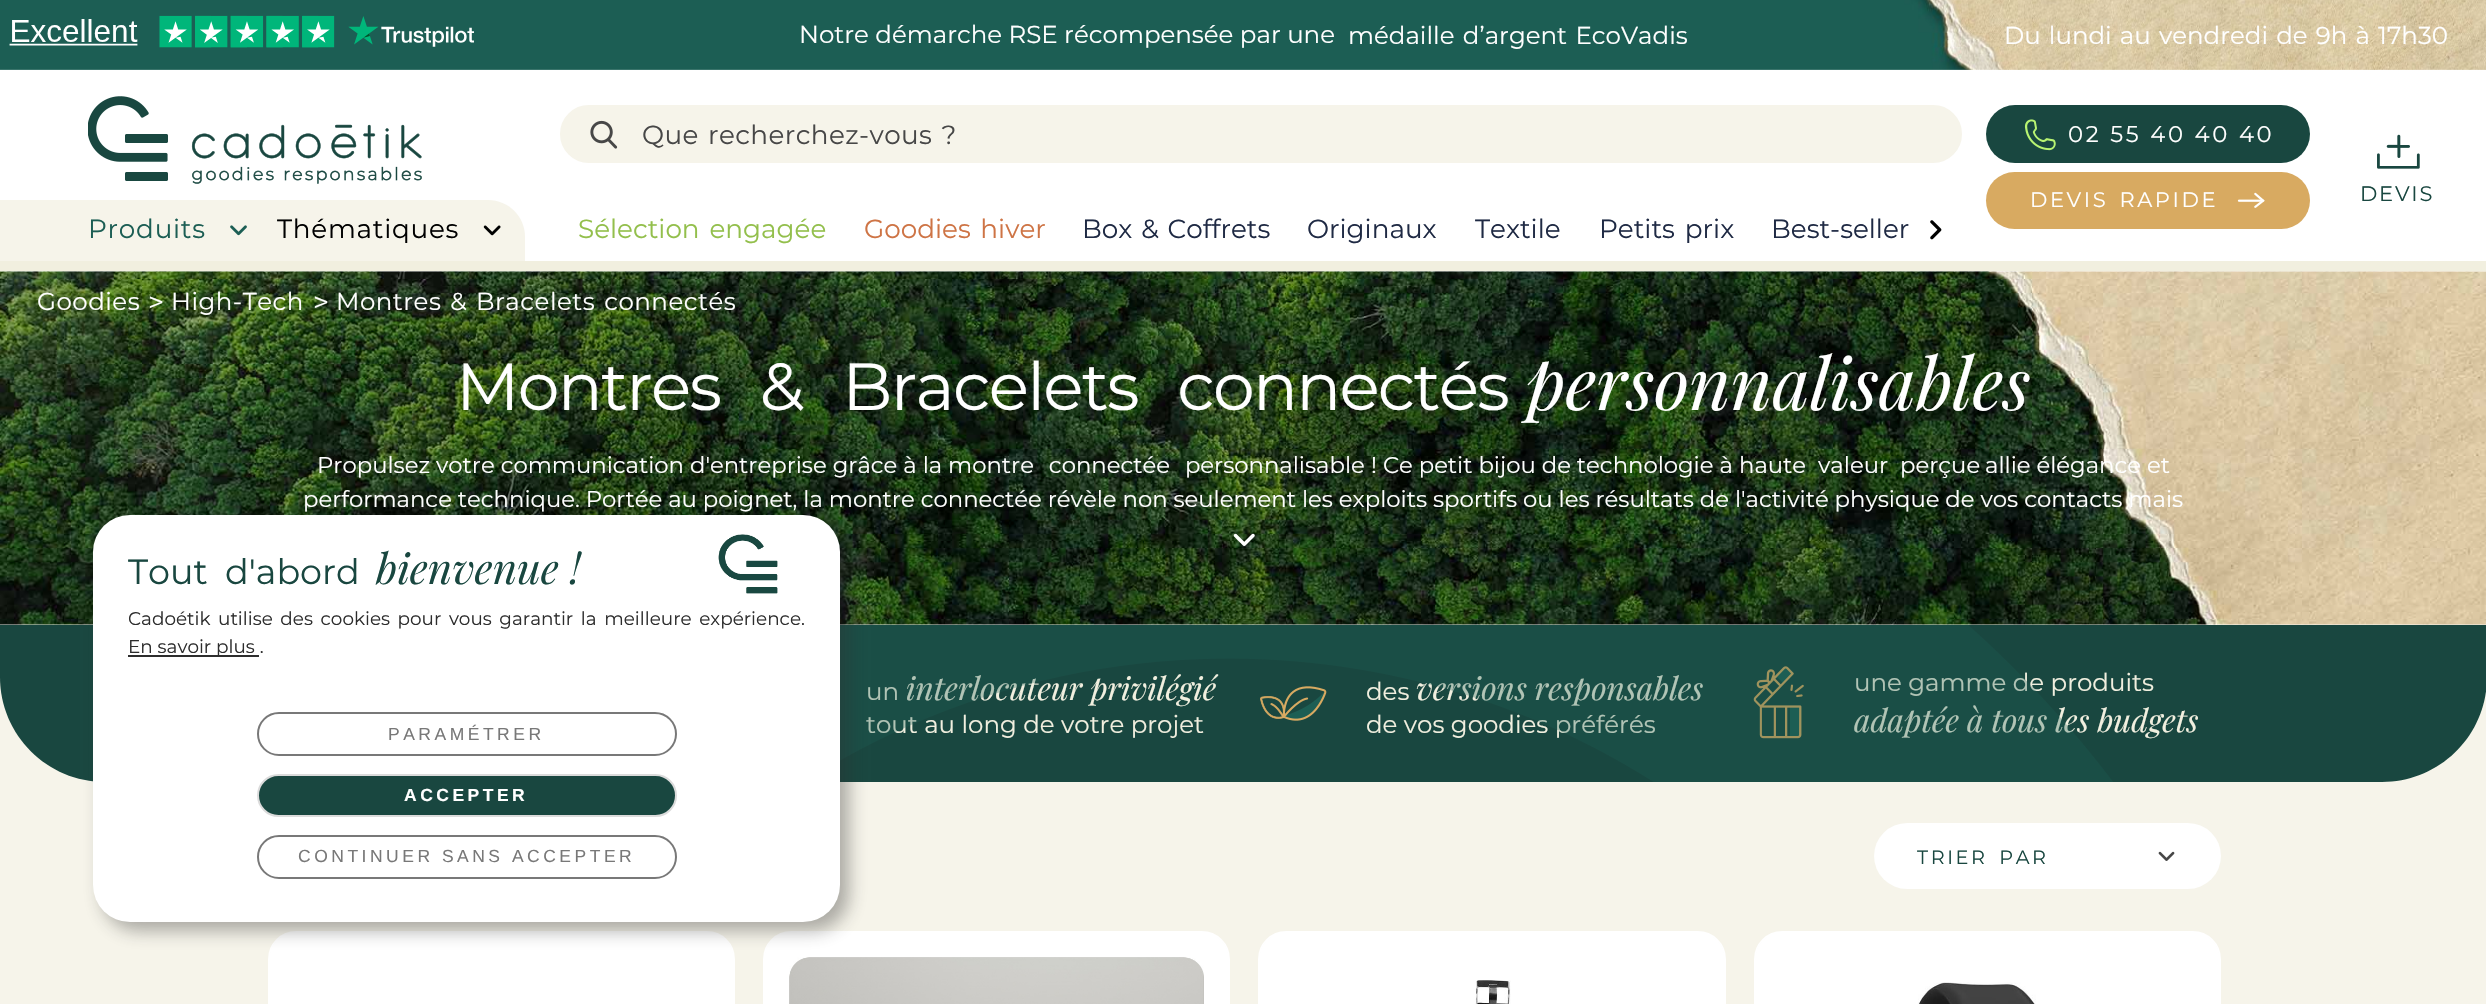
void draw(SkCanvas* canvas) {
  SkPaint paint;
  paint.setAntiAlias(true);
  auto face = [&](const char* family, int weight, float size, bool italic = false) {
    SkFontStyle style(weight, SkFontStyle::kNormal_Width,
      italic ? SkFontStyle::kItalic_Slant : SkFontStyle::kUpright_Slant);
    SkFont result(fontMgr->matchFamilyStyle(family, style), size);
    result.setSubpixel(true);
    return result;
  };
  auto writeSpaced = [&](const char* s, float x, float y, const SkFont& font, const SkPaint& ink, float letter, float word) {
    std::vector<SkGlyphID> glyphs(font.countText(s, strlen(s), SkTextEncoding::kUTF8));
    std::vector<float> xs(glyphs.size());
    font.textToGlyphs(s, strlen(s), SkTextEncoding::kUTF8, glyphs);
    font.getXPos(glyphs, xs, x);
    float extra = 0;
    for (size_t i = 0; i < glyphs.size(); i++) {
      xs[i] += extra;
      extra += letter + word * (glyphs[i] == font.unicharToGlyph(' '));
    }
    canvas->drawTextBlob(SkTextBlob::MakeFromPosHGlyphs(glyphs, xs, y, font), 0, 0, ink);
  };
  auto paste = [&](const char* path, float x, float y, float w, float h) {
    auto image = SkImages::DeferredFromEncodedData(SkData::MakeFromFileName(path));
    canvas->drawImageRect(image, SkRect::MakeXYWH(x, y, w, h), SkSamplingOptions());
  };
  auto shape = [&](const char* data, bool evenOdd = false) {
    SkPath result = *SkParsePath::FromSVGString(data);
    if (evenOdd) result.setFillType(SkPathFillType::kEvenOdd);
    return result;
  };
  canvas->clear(0xffffffff);
  paint.setColor(0xfff1efdf);
  canvas->drawRect(SkRect::MakeXYWH(0, 261, 2486, 10), paint);
  paste("img/1.png", 0, 0, 2486, 70);
  paste("img/2.png", 9, 15, 465, 33);
  paste("img/3.png", 88, 96, 334, 88);
  paint.setColor(0xfff6f4ea);
  canvas->drawRoundRect(SkRect::MakeXYWH(561, 106, 1400, 56), 28, 28, paint);
  paint.setStroke(true);
  paint.setStrokeWidth(2);
  canvas->drawRoundRect(SkRect::MakeXYWH(561, 106, 1400, 56), 28, 28, paint);
  paste("img/4.png", 590, 120, 28, 29);
  paste("img/5.png", 1930, 220, 12, 20);
  paint.setStroke(false);
  paint.setColor(0xff194740);
  canvas->drawRoundRect(SkRect::MakeXYWH(1986, 105, 324, 58), 29, 29, paint);
  paste("img/6.png", 2024, 119, 32, 32);
  paint.setColor(0xffd8aa61);
  canvas->drawRoundRect(SkRect::MakeXYWH(1986, 172, 324, 57), 28.5f, 28.5f, paint);
  paste("img/7.png", 2237, 192, 28, 16);
  paste("img/8.png", 2377, 134, 43, 35);
  paint.setColor(0xfff6f4ea);
  canvas->drawPath(shape("M0 200H488C508.5 200 525 216.5 525 237V261H0Z"), paint);
  paste("img/9.png", 230, 225, 17, 11);
  paste("img/10.png", 483, 225, 18, 11);
  paste("img/11.png", 0, 271, 2486, 354);
  paste("img/12.png", 1233, 533, 22, 13);
  canvas->drawRect(SkRect::MakeXYWH(0, 677, 2486, 327), paint);
  paint.setColor(0xffffffff);
  canvas->drawRoundRect(SkRect::MakeXYWH(1874, 823, 347, 66), 33, 33, paint);
  paste("img/14.png", 2158, 851, 17, 10);
  canvas->drawRoundRect(SkRect::MakeXYWH(269, 932, 465, 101), 27, 27, paint);
  paint.setStroke(true);
  canvas->drawRoundRect(SkRect::MakeXYWH(269, 932, 465, 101), 27, 27, paint);
  paint.setStroke(false);
  canvas->drawRoundRect(SkRect::MakeXYWH(764, 932, 465, 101), 27, 27, paint);
  paint.setStroke(true);
  canvas->drawRoundRect(SkRect::MakeXYWH(764, 932, 465, 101), 27, 27, paint);
  paste("img/15.png", 789, 957, 415, 47);
  paint.setStroke(false);
  canvas->drawRoundRect(SkRect::MakeXYWH(1259, 932, 466, 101), 27, 27, paint);
  paint.setStroke(true);
  canvas->drawRoundRect(SkRect::MakeXYWH(1259, 932, 466, 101), 27, 27, paint);
  paste("img/16.png", 1475, 980, 36, 24);
  paint.setStroke(false);
  canvas->drawRoundRect(SkRect::MakeXYWH(1755, 932, 465, 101), 27, 27, paint);
  paint.setStroke(true);
  canvas->drawRoundRect(SkRect::MakeXYWH(1755, 932, 465, 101), 27, 27, paint);
  paste("img/17.png", 1918, 982, 118, 22);
  paint.setStroke(false);
  paint.setColor(0xff194740);
  canvas->drawPath(shape("M0 625H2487V677C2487 735 2440 782 2382 782H105C47 782 0 735 0 677Z"), paint);
  paste("img/19.png", 1260, 686, 67, 35);
  paste("img/20.png", 1753, 666, 51, 73);
  auto f0 = face("Montserrat", 400, 24.5f);
  paint.setColor(0xffffffff);
  canvas->drawString("Notre démarche RSE récompensée par une", 799, 43, f0, paint);
  writeSpaced("médaille d’argent EcoVadis", 1348, 44, f0, paint, 0, 2);
  writeSpaced("Du lundi au vendredi de 9h à 17h30", 2004, 44, f0, paint, 0, 1.75f);
  auto f1 = face("Montserrat", 400, 26.25f);
  paint.setColor(0xff474747);
  writeSpaced("Que recherchez-vous ?", 642, 144, f1, paint, 0.4f, 2);
  paint.setColor(0xff93bf4c);
  writeSpaced("Sélection engagée", 578, 238, f1, paint, 0, 3);
  paint.setColor(0xffce7445);
  writeSpaced("Goodies hiver", 864, 238, f1, paint, 0, 2.75f);
  paint.setColor(0xff1f2a44);
  writeSpaced("Box & Coffrets", 1082, 238, f1, paint, 0, 2);
  canvas->drawString("Originaux", 1307, 238, f1, paint);
  canvas->drawString("Textile", 1475, 238, f1, paint);
  writeSpaced("Petits prix", 1599, 238, f1, paint, 0, 3);
  canvas->drawString("Best-seller", 1771, 238, f1, paint);
  auto f2 = face("Montserrat", 400, 22.75f);
  paint.setColor(0xffffffff);
  writeSpaced("02 55 40 40 40", 2068, 142, f2, paint, 2.6f, 0.5f);
  auto f3 = face("Montserrat", 400, 21);
  writeSpaced("DEVIS RAPIDE", 2030, 207, f3, paint, 2.6f, 3);
  paint.setColor(0xff194740);
  writeSpaced("DEVIS", 2360, 201, f3, paint, 1.75f, 0);
  paint.setColor(0xff1c5e54);
  writeSpaced("Produits", 88, 238, f1, paint, 0.75f, 0);
  paint.setColor(0xff000000);
  writeSpaced("Thématiques", 277, 238, f1, paint, 0.75f, 0);
  paint.setColor(0xffffffff);
  writeSpaced("Goodies", 37, 310, f0, paint, 0.5f, 0);
  auto f4 = face("Montserrat", 400, 28);
  canvas->drawString(">", 148, 312, f4, paint);
  writeSpaced("High-Tech", 171, 310, f0, paint, 0.5f, 0);
  canvas->drawString(">", 313, 312, f4, paint);
  writeSpaced("Montres & Bracelets connectés", 336, 310, f0, paint, 0.5f, 2);
  auto f5 = face("Montserrat", 400, 66.5f);
  writeSpaced("Montres & Bracelets connectés", 456, 410, f5, paint, -1.75f, 24);
  auto f6 = face("Playfair Display", 400, 71.75f, true);
  canvas->drawString("personnalisables", 1526, 410, f6, paint);
  canvas->drawString("Propulsez votre communication d'entreprise grâce à la", 317, 473, f2, paint);
  writeSpaced("montre connectée personnalisable", 948, 473, f2, paint, 0, 9);
  canvas->drawString("! Ce petit bijou de technologie à", 1371, 473, f2, paint);
  writeSpaced("haute valeur perçue", 1739, 473, f2, paint, 0, 6);
  canvas->drawString("allie élégance et", 1985, 473, f2, paint);
  canvas->drawString("performance technique. Portée au poignet, la montre connectée révèle non seulement les exploits sportifs ou les résultats de l'activité physique de vos contacts mais", 303, 507, f2, paint);
  auto f7 = face("Montserrat", 400, 19.25f);
  paint.setColor(0xff194740);
  writeSpaced("TRIER PAR", 1917, 864, f7, paint, 2.6f, 4);
  paint.setColor(0xfff1efdf);
  canvas->drawString("un", 866, 700, f0, paint);
  auto f8 = face("Playfair Display", 400, 31.5f, true);
  canvas->drawString("interlocuteur privilégié", 906, 700, f8, paint);
  canvas->drawString("tout au long de votre projet", 866, 733, f0, paint);
  canvas->drawString("des", 1366, 700, f0, paint);
  canvas->drawString("versions responsables", 1416, 700, f8, paint);
  canvas->drawString("de vos goodies préférés", 1366, 733, f0, paint);
  canvas->drawString("une gamme de produits", 1854, 691, f0, paint);
  canvas->drawString("adaptée à tous les budgets", 1854, 732, f8, paint);
  paste("img/18.png", 840, 625, 1273, 157);
  canvas->save();
  canvas->clipRect(SkRect::MakeXYWH(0, 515, 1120, 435));
  paint.setColor(0x612d2d2d);
  paint.setMaskFilter(SkMaskFilter::MakeBlur(kNormal_SkBlurStyle, 9));
  canvas->drawRoundRect(SkRect::MakeXYWH(102, 523, 747, 408), 37, 37, paint);
  paint.setMaskFilter(nullptr);
  canvas->restore();
  paint.setColor(0xffffffff);
  canvas->drawRoundRect(SkRect::MakeXYWH(93, 515, 747, 407), 37, 37, paint);
  paint.setStroke(true);
  paint.setColor(0xff787878);
  canvas->drawRoundRect(SkRect::MakeXYWH(258, 836, 418, 42), 21, 21, paint);
  auto f9 = face("Liberation Sans", 400, 17.5f);
  paint.setStroke(false);
  writeSpaced("CONTINUER SANS ACCEPTER", 298, 862, f9, paint, 3.5f, 0);
  paint.setColor(0xff194740);
  canvas->drawRoundRect(SkRect::MakeXYWH(258, 775, 418, 41), 20.5f, 20.5f, paint);
  paint.setStroke(true);
  paint.setColor(0xffdbdbdb);
  canvas->drawRoundRect(SkRect::MakeXYWH(258, 775, 418, 41), 20.5f, 20.5f, paint);
  auto f10 = face("Liberation Sans", 700, 17.5f);
  paint.setStroke(false);
  paint.setColor(0xffffffff);
  writeSpaced("ACCEPTER", 404, 801, f10, paint, 3.5f, 0);
  paint.setStroke(true);
  paint.setColor(0xff787878);
  canvas->drawRoundRect(SkRect::MakeXYWH(258, 713, 418, 42), 21, 21, paint);
  paint.setStroke(false);
  writeSpaced("PARAMÉTRER", 388, 740, f9, paint, 3.5f, 0);
  paint.setColor(0xff2d2d2d);
  canvas->drawRect(SkRect::MakeXYWH(128, 655, 131, 2), paint);
  auto f11 = face("Montserrat", 400, 18.4f);
  canvas->drawString("En savoir plus .", 128, 653, f11, paint);
  writeSpaced("Cadoétik utilise des cookies pour vous garantir la meilleure expérience.", 128, 625, f11, paint, 0, 2.75f);
  paste("img/13.png", 718, 534, 60, 60);
  auto f12 = face("Playfair Display", 400, 42, true);
  paint.setColor(0xff194740);
  canvas->drawString("bienvenue !", 376, 584, f12, paint);
  auto f13 = face("Montserrat", 400, 35);
  writeSpaced("Tout d'abord", 128, 584, f13, paint, 0, 8);
}
